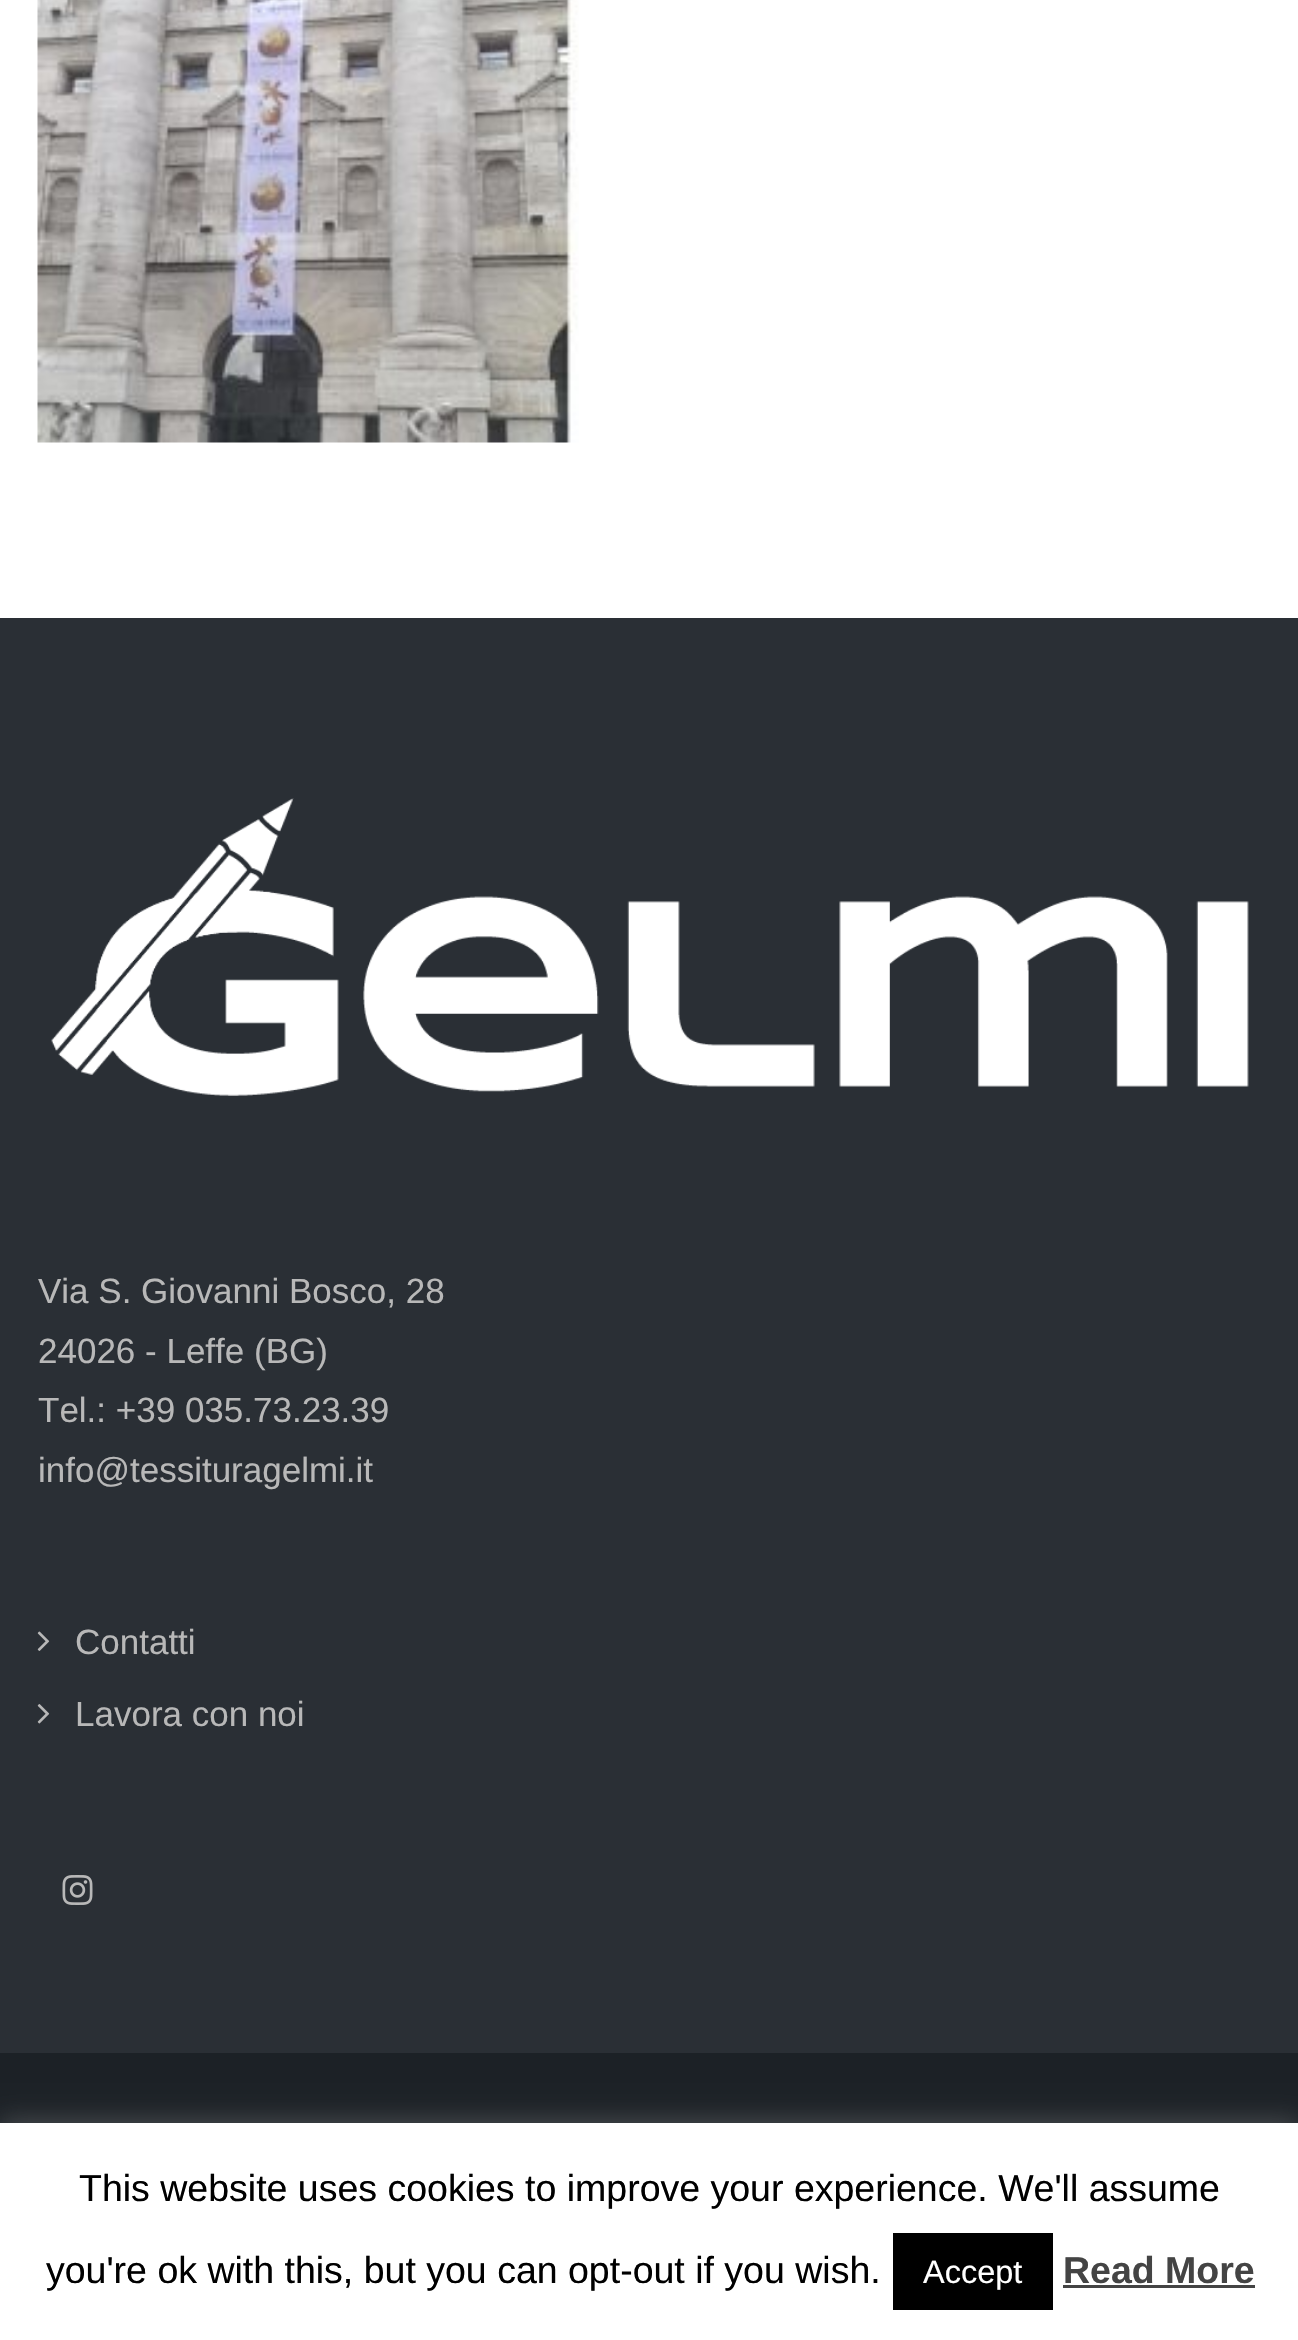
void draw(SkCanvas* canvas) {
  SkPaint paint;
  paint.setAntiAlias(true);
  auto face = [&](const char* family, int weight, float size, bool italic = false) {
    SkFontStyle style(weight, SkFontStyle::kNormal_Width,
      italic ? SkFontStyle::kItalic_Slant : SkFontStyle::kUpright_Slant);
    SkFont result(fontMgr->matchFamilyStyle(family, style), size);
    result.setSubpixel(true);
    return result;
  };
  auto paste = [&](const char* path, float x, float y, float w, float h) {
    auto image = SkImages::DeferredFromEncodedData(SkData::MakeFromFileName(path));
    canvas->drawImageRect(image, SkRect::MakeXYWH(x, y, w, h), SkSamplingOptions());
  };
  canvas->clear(0xffffffff);
  paste("img/1.png", 37, 0, 542, 443);
  paint.setColor(0xff2a2f35);
  canvas->drawRect(SkRect::MakeXYWH(0, 618, 1298, 1435), paint);
  paste("img/2.png", 51, 798, 1198, 298);
  paste("img/3.png", 37, 1631, 13, 20);
  paste("img/4.png", 37, 1704, 13, 20);
  paste("img/5.png", 62, 1875, 31, 30);
  paint.setColor(0xff1c2126);
  canvas->drawRect(SkRect::MakeXYWH(0, 2053, 1298, 70), paint);
  paint.setColor(0x4dacabab);
  paint.setMaskFilter(SkMaskFilter::MakeBlur(kNormal_SkBlurStyle, 12.5f));
  canvas->drawRect(SkRect::MakeXYWH(0, 2120, 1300, 218), paint);
  paint.setMaskFilter(nullptr);
  {
    const struct { float x, y, w, h; SkColor color; } items[] = {
      {0, 2123, 1298, 217, 0xffffffff},
      {893, 2233, 160, 77, 0xff000000},
      {1063, 2285, 192, 3, 0xff444444},
    };
    for (auto [x, y, w, h, color] : items) {
      paint.setColor(color);
      canvas->drawRect(SkRect::MakeXYWH(x, y, w, h), paint);
    }
  }
  auto f0 = face("Liberation Sans", 400, 35);
  paint.setColor(0xffb8b8b8);
  {
    const struct { const char* s; float x, y; } items[] = {
      {"Via S. Giovanni Bosco, 28", 38, 1303},
      {"24026 - Leffe (BG)", 38, 1363},
      {"Tel.: +39 035.73.23.39", 38, 1422},
      {"info@tessituragelmi.it", 38, 1482},
      {"Contatti", 75, 1654},
      {"Lavora con noi", 75, 1726},
    };
    for (auto [s, x, y] : items) {
      canvas->drawString(s, x, y, f0, paint);
    }
  }
  auto f1 = face("Liberation Sans", 400, 37.5f);
  paint.setColor(0xff000000);
  canvas->drawString("This website uses cookies to improve your experience. We'll assume", 79, 2201, f1, paint);
  canvas->drawString("you're ok with this, but you can opt-out if you wish.", 46, 2283, f1, paint);
  auto f2 = face("Liberation Sans", 400, 32.5f);
  paint.setColor(0xffffffff);
  canvas->drawString("Accept", 923, 2283, f2, paint);
  auto f3 = face("Liberation Sans", 700, 37.5f);
  paint.setColor(0xff444444);
  canvas->drawString("Read More", 1063, 2283, f3, paint);
}
